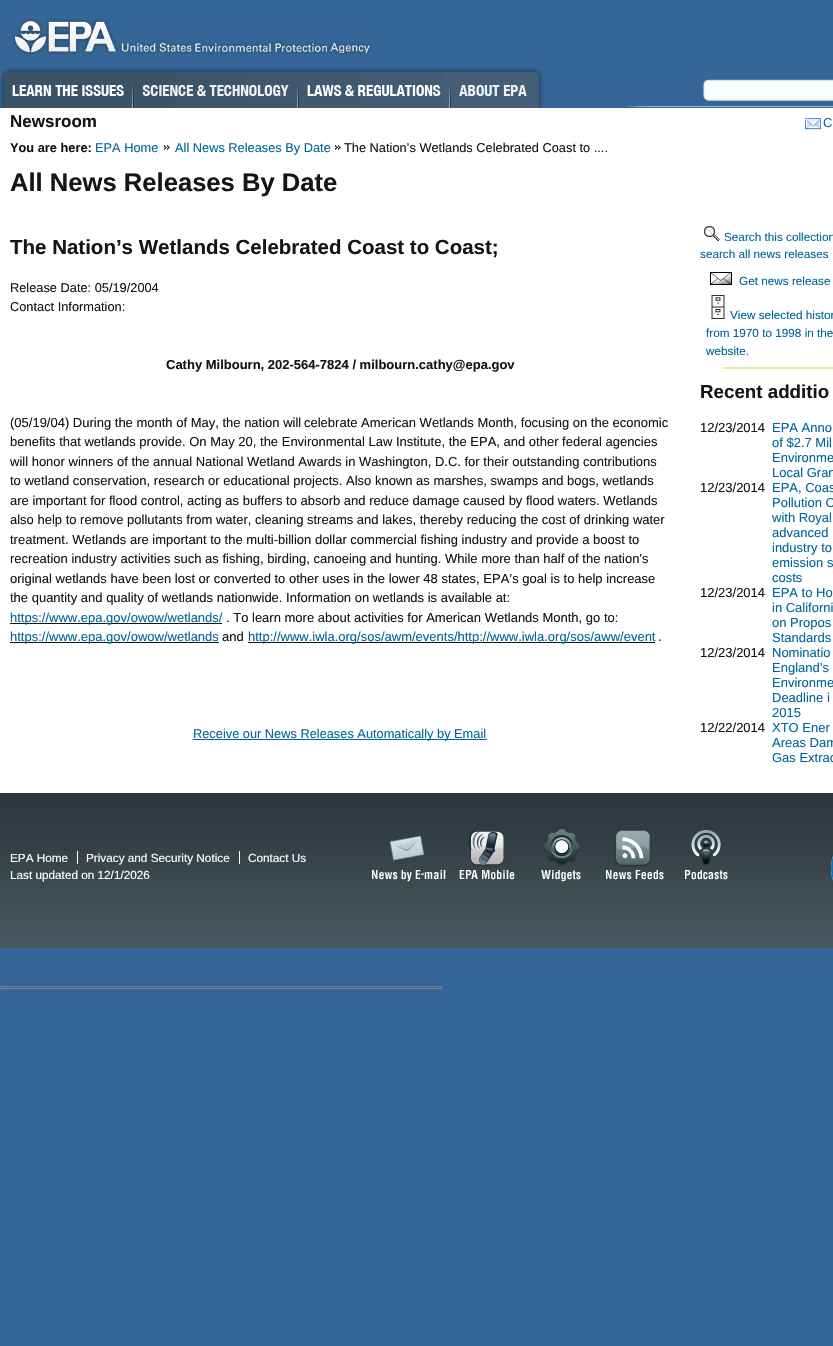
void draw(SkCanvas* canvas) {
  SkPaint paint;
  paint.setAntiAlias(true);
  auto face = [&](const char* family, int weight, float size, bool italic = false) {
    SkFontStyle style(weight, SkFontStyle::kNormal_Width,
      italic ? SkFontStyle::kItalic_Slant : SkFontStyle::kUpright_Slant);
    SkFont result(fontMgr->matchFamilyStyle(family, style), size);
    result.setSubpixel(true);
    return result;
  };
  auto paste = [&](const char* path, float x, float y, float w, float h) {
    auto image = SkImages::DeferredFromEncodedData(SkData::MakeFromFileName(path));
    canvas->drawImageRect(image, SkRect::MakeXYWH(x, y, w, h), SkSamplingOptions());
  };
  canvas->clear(0xff356697);
  paste("img/1.png", 0, 18, 833, 90);
  paint.setColor(0xffffffff);
  canvas->drawRect(SkRect::MakeXYWH(0, 108, 833, 685), paint);
  paste("img/2.png", 805, 118, 16, 12);
  paste("img/3.png", 164, 144, 6, 6);
  paste("img/3.png", 335, 144, 6, 6);
  {
    const struct { float x, y, w, h; SkColor color; } items[] = {
      {10, 623, 212, 1, 0xff151515},
      {10, 642, 209, 1, 0xff151515},
      {248, 642, 407, 1, 0xff151515},
      {193, 739, 294, 1, 0xff006699},
    };
    for (auto [x, y, w, h, color] : items) {
      paint.setColor(color);
      canvas->drawRect(SkRect::MakeXYWH(x, y, w, h), paint);
    }
  }
  paste("img/4.png", 704, 226, 16, 15);
  paste("img/5.png", 710, 272, 22, 13);
  paste("img/6.png", 706, 295, 24, 24);
  paint.setColor(0xffd9f0a0);
  canvas->drawRect(SkRect::MakeXYWH(723, 367, 110, 2), paint);
  paste("img/7.png", 0, 793, 833, 155);
  {
    const struct { float x, y, w, h; SkColor color; } items[] = {
      {77, 851, 1, 13, 0xffffffff},
      {239, 851, 1, 13, 0xffffffff},
      {0, 986, 442, 1, 0xff808080},
      {441, 986, 1, 3, 0xff808080},
      {0, 988, 442, 1, 0xff808080},
      {0, 986, 1, 3, 0xff808080},
    };
    for (auto [x, y, w, h, color] : items) {
      paint.setColor(color);
      canvas->drawRect(SkRect::MakeXYWH(x, y, w, h), paint);
    }
  }
  auto f0 = face("Liberation Sans", 700, 17);
  paint.setColor(0xff151515);
  canvas->drawString("Newsroom", 10, 127, f0, paint);
  auto f1 = face("Liberation Sans", 400, 13);
  paint.setColor(0xff006699);
  canvas->drawString("C", 823, 127, f1, paint);
  auto f2 = face("Liberation Sans", 700, 12.8f);
  paint.setColor(0xff151515);
  canvas->drawString("You are here:", 10, 152, f2, paint);
  auto f3 = face("Liberation Sans", 400, 12.8f);
  paint.setColor(0xff006699);
  canvas->drawString("EPA Home", 95, 152, f3, paint);
  canvas->drawString("All News Releases By Date", 175, 152, f3, paint);
  paint.setColor(0xff151515);
  canvas->drawString("The Nation’s Wetlands Celebrated Coast to ....", 344, 152, f3, paint);
  auto f4 = face("Liberation Sans", 700, 25.6f);
  canvas->drawString("All News Releases By Date", 10, 191, f4, paint);
  auto f5 = face("Liberation Sans", 700, 20.5f);
  canvas->drawString("The Nation’s Wetlands Celebrated Coast to Coast;", 10, 254, f5, paint);
  canvas->drawString("Release Date: 05/19/2004", 10, 292, f3, paint);
  canvas->drawString("Contact Information:", 10, 311, f3, paint);
  auto f6 = face("Liberation Sans", 700, 13);
  canvas->drawString("Cathy Milbourn, 202-564-7824 / milbourn.cathy@epa.gov", 166, 369, f6, paint);
  {
    const struct { const char* s; float x, y; } items[] = {
      {"(05/19/04) During the month of May, the nation will", 10, 427},
      {"celebrate American Wetlands Month, focusing on the economic", 304, 427},
      {"benefits that wetlands provide. On May 20, the Environmental Law Institute, the EPA, and other federal agencies", 10, 446},
      {"will honor winners of the annual National Wetland Awards in Washington, D.C. for their outstanding contributions", 10, 466},
      {"to wetland conservation, research or educational projects. Also known as marshes, swamps and bogs, wetlands", 10, 485},
      {"are important for flood control, acting as buffers to absorb and reduce damage caused by flood waters. Wetlands", 10, 505},
      {"also help to remove pollutants from water, cleaning streams and lakes, thereby reducing the cost of drinking water", 10, 524},
      {"treatment. Wetlands are important to the multi-billion dollar commercial fishing industry and provide a boost to", 10, 544},
      {"recreation industry activities such as fishing, birding, canoeing and hunting. While more than half of the nation's", 10, 563},
      {"original wetlands have been lost or converted to other uses in the lower 48 states, EPA’s goal is to help increase", 10, 583},
      {"the quantity and quality of wetlands nationwide. Information on wetlands is available at:", 10, 602},
    };
    for (auto [s, x, y] : items) {
      canvas->drawString(s, x, y, f1, paint);
    }
  }
  paint.setColor(0xff006699);
  canvas->drawString("https://www.epa.gov/owow/wetlands/", 10, 622, f1, paint);
  paint.setColor(0xff151515);
  canvas->drawString(". To learn more about activities for American Wetlands Month, go to:", 226, 622, f1, paint);
  paint.setColor(0xff006699);
  canvas->drawString("https://www.epa.gov/owow/wetlands", 10, 641, f1, paint);
  paint.setColor(0xff151515);
  canvas->drawString("and", 222, 641, f1, paint);
  paint.setColor(0xff006699);
  canvas->drawString("http://www.iwla.org/sos/awm/events/http://www.iwla.org/sos/aww/event", 248, 641, f1, paint);
  paint.setColor(0xff151515);
  canvas->drawString(".", 658, 641, f1, paint);
  paint.setColor(0xff006699);
  canvas->drawString("Receive our News Releases Automatically by Email", 193, 738, f3, paint);
  auto f7 = face("Liberation Sans", 400, 11.75f);
  {
    const struct { const char* s; float x, y; } items[] = {
      {"Search this collection", 724, 241},
      {"search all news releases", 700, 258},
      {"Get news release", 739, 285},
      {"View selected histor", 730, 319},
      {"from 1970 to 1998 in the", 706, 337},
      {"website.", 706, 355},
    };
    for (auto [s, x, y] : items) {
      canvas->drawString(s, x, y, f7, paint);
    }
  }
  auto f8 = face("Liberation Sans", 700, 18.75f);
  paint.setColor(0xff151515);
  canvas->drawString("Recent additio", 700, 398, f8, paint);
  canvas->drawString("12/23/2014", 700, 432, f1, paint);
  paint.setColor(0xff006699);
  {
    const struct { const char* s; float x, y; } items[] = {
      {"EPA Anno", 772, 432},
      {"of $2.7 Mil", 772, 447},
      {"Environme", 772, 462},
      {"Local Gran", 772, 477},
    };
    for (auto [s, x, y] : items) {
      canvas->drawString(s, x, y, f1, paint);
    }
  }
  paint.setColor(0xff151515);
  canvas->drawString("12/23/2014", 700, 492, f1, paint);
  paint.setColor(0xff006699);
  {
    const struct { const char* s; float x, y; } items[] = {
      {"EPA, Coas", 772, 492},
      {"Pollution C", 772, 507},
      {"with Royal", 772, 522},
      {"advanced", 772, 537},
      {"industry to", 772, 552},
      {"emission s", 772, 567},
      {"costs", 772, 582},
    };
    for (auto [s, x, y] : items) {
      canvas->drawString(s, x, y, f1, paint);
    }
  }
  paint.setColor(0xff151515);
  canvas->drawString("12/23/2014", 700, 597, f1, paint);
  paint.setColor(0xff006699);
  {
    const struct { const char* s; float x, y; } items[] = {
      {"EPA to Ho", 772, 597},
      {"in Californi", 772, 612},
      {"on Propos", 772, 627},
      {"Standards", 772, 642},
    };
    for (auto [s, x, y] : items) {
      canvas->drawString(s, x, y, f1, paint);
    }
  }
  paint.setColor(0xff151515);
  canvas->drawString("12/23/2014", 700, 657, f1, paint);
  paint.setColor(0xff006699);
  {
    const struct { const char* s; float x, y; } items[] = {
      {"Nominatio", 772, 657},
      {"England’s", 772, 672},
      {"Environme", 772, 687},
      {"Deadline i", 772, 702},
      {"2015", 772, 717},
    };
    for (auto [s, x, y] : items) {
      canvas->drawString(s, x, y, f1, paint);
    }
  }
  paint.setColor(0xff151515);
  canvas->drawString("12/22/2014", 700, 732, f1, paint);
  paint.setColor(0xff006699);
  {
    const struct { const char* s; float x, y; } items[] = {
      {"XTO Ener", 772, 732},
      {"Areas Dam", 772, 747},
      {"Gas Extrac", 772, 762},
    };
    for (auto [s, x, y] : items) {
      canvas->drawString(s, x, y, f1, paint);
    }
  }
  paint.setColor(0xffffffff);
  {
    const struct { const char* s; float x, y; } items[] = {
      {"EPA Home", 10, 862},
      {"Privacy and Security Notice", 86, 862},
      {"Contact Us", 248, 862},
      {"Last updated on 12/1/2026", 10, 879},
    };
    for (auto [s, x, y] : items) {
      canvas->drawString(s, x, y, f7, paint);
    }
  }
}
